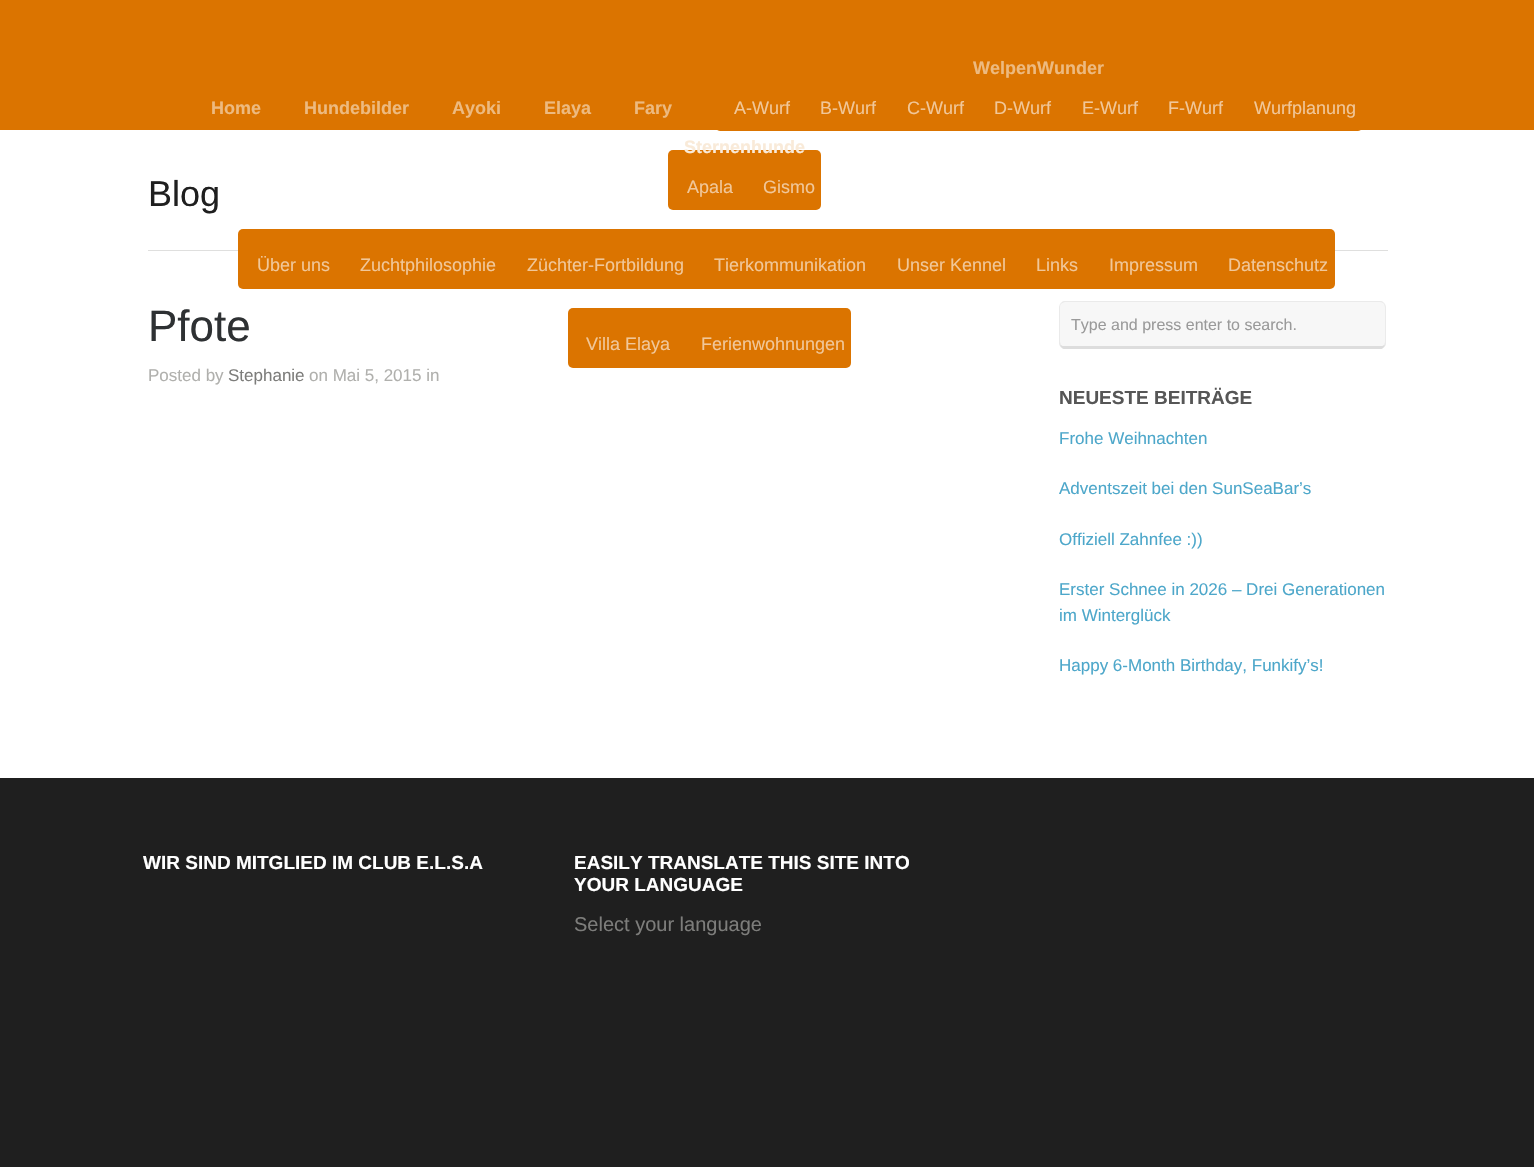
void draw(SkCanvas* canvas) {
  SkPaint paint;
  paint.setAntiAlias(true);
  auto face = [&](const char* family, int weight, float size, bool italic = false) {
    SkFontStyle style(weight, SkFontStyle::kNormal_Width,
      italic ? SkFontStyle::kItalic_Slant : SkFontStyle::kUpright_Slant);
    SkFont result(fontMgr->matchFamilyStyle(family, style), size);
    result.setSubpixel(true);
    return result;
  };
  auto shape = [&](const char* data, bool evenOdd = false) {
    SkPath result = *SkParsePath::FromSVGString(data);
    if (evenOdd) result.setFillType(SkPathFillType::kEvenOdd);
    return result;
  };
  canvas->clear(0xff1f1f1f);
  paint.setColor(0xffdb7400);
  canvas->drawRect(SkRect::MakeXYWH(0, 0, 1534, 130), paint);
  paint.setColor(0xffffffff);
  canvas->drawRect(SkRect::MakeXYWH(0, 130, 1534, 648), paint);
  paint.setColor(0xffdb7400);
  canvas->drawRoundRect(SkRect::MakeXYWH(715, 71, 648, 60), 5, 5, paint);
  canvas->drawRoundRect(SkRect::MakeXYWH(668, 150, 153, 60), 5, 5, paint);
  paint.setColor(0xffdfdfde);
  canvas->drawRect(SkRect::MakeXYWH(148, 250, 1240, 1), paint);
  paint.setColor(0xffdb7400);
  canvas->drawRoundRect(SkRect::MakeXYWH(238, 229, 1097, 60), 5, 5, paint);
  canvas->drawRoundRect(SkRect::MakeXYWH(568, 308, 283, 60), 5, 5, paint);
  paint.setColor(0xfff7f7f7);
  canvas->drawRoundRect(SkRect::MakeXYWH(1059, 301, 327, 48), 6, 6, paint);
  paint.setColor(0x0d000000);
  canvas->drawPath(shape("M1065 302C1064 302 1062 303 1061 304V303L1063 301H1382L1384 303V304C1383 303 1382 302 1380 302Z"), paint);
  paint.setColor(0xffebebeb);
  canvas->drawPath(shape("M1384 303C1385 304 1386 306 1386 308V342C1386 344 1386 345 1385 346L1384 345L1385 342V308C1385 306 1384 305 1384 304Z"), paint);
  paint.setColor(0x1a000000);
  canvas->drawPath(shape("M1063 349C1062 348 1061 347 1060 346L1061 345C1062 346 1063 346 1065 346H1380C1382 346 1383 346 1384 345L1385 346C1384 347 1383 348 1382 349Z"), paint);
  paint.setColor(0x0d000000);
  canvas->drawPath(shape("M1060 346C1059 345 1059 344 1059 342V308C1059 306 1060 304 1061 303V304C1060 305 1060 306 1060 308V342L1061 345Z"), paint);
  auto f0 = face("Liberation Sans", 700, 18);
  paint.setColor(0xffedba80);
  {
    const struct { const char* s; float x, y; } items[] = {
      {"Home", 211, 114},
      {"Hundebilder", 304, 114},
      {"Ayoki", 452, 114},
      {"Elaya", 544, 114},
      {"Fary", 634, 114},
      {"WelpenWunder", 973, 74},
    };
    for (auto [s, x, y] : items) {
      canvas->drawString(s, x, y, f0, paint);
    }
  }
  auto f1 = face("Liberation Sans", 400, 18);
  paint.setColor(0xfff1c799);
  {
    const struct { const char* s; float x, y; } items[] = {
      {"A-Wurf", 734, 114},
      {"B-Wurf", 820, 114},
      {"C-Wurf", 907, 114},
      {"D-Wurf", 994, 114},
      {"E-Wurf", 1082, 114},
      {"F-Wurf", 1168, 114},
      {"Wurfplanung", 1254, 114},
    };
    for (auto [s, x, y] : items) {
      canvas->drawString(s, x, y, f1, paint);
    }
  }
  paint.setColor(0xfff9ead8);
  canvas->drawString("Sternenhunde", 684, 153, f0, paint);
  paint.setColor(0xfff1c799);
  {
    const struct { const char* s; float x, y; } items[] = {
      {"Apala", 687, 193},
      {"Gismo", 763, 193},
      {"Über uns", 257, 271},
      {"Zuchtphilosophie", 360, 271},
      {"Züchter-Fortbildung", 527, 271},
      {"Tierkommunikation", 714, 271},
      {"Unser Kennel", 897, 271},
      {"Links", 1036, 271},
      {"Impressum", 1109, 271},
      {"Datenschutz", 1228, 271},
      {"Villa Elaya", 586, 350},
      {"Ferienwohnungen", 701, 350},
    };
    for (auto [s, x, y] : items) {
      canvas->drawString(s, x, y, f1, paint);
    }
  }
  auto f2 = face("Liberation Sans", 400, 36);
  paint.setColor(0xff1f1f1f);
  canvas->drawString("Blog", 148, 206, f2, paint);
  auto f3 = face("Liberation Sans", 400, 44);
  paint.setColor(0xff2e3133);
  canvas->drawString("Pfote", 148, 341, f3, paint);
  auto f4 = face("Liberation Sans", 400, 17);
  paint.setColor(0xffb0b0ad);
  canvas->drawString("Posted by", 148, 381, f4, paint);
  paint.setColor(0xff7d7d7b);
  canvas->drawString("Stephanie", 228, 381, f4, paint);
  paint.setColor(0xffb0b0ad);
  canvas->drawString("on Mai 5, 2015 in", 309, 381, f4, paint);
  auto f5 = face("Liberation Sans", 400, 16);
  paint.setColor(0xff9a9a9a);
  canvas->drawString("Type and press enter to search.", 1071, 330, f5, paint);
  auto f6 = face("Liberation Sans", 700, 19);
  paint.setColor(0xff565656);
  canvas->drawString("NEUESTE BEITRÄGE", 1059, 404, f6, paint);
  paint.setColor(0xff4da7ca);
  {
    const struct { const char* s; float x, y; } items[] = {
      {"Frohe Weihnachten", 1059, 444},
      {"Adventszeit bei den SunSeaBar’s", 1059, 494},
      {"Offiziell Zahnfee :))", 1059, 545},
      {"Erster Schnee in 2026 – Drei Generationen", 1059, 595},
      {"im Winterglück", 1059, 621},
      {"Happy 6-Month Birthday, Funkify’s!", 1059, 671},
    };
    for (auto [s, x, y] : items) {
      canvas->drawString(s, x, y, f4, paint);
    }
  }
  paint.setColor(0xffffffff);
  {
    const struct { const char* s; float x, y; } items[] = {
      {"WIR SIND MITGLIED IM CLUB E.L.S.A", 143, 869},
      {"EASILY TRANSLATE THIS SITE INTO", 574, 869},
      {"YOUR LANGUAGE", 574, 891},
    };
    for (auto [s, x, y] : items) {
      canvas->drawString(s, x, y, f6, paint);
    }
  }
  auto f7 = face("Liberation Sans", 400, 20);
  paint.setColor(0xff7d7d7b);
  canvas->drawString("Select your language", 574, 931, f7, paint);
}
